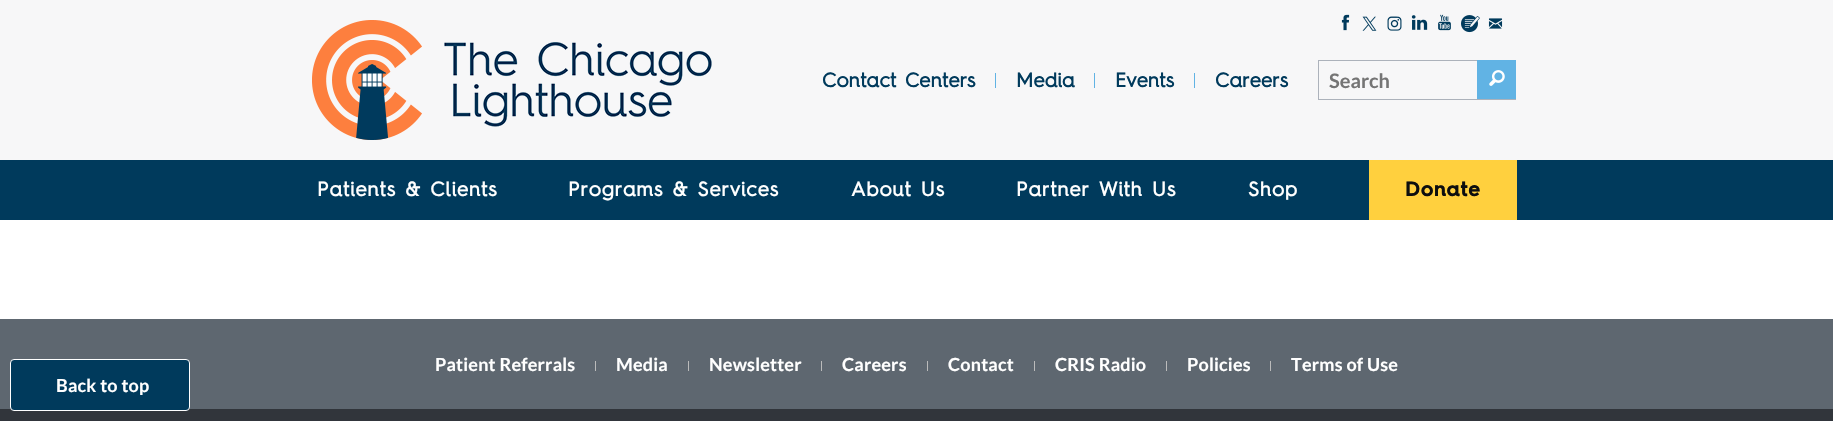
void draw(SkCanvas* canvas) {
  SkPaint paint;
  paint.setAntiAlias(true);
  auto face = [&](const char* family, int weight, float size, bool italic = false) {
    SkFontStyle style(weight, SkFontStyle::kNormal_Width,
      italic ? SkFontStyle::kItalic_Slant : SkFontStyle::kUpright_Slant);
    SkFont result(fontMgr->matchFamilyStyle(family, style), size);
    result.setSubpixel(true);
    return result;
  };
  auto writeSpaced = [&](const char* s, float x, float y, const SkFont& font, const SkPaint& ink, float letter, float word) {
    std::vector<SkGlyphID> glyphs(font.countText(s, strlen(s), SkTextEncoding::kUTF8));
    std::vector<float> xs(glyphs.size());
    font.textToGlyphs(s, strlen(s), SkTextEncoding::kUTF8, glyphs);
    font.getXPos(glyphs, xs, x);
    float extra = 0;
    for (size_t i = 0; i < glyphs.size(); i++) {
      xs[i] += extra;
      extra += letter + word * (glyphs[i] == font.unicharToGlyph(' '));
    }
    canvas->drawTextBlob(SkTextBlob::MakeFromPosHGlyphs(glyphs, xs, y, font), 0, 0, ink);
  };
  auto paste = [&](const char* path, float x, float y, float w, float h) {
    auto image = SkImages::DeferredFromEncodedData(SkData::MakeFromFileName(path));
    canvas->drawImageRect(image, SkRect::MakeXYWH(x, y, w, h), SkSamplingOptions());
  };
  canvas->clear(0xffffffff);
  paint.setColor(0xfff7f7f8);
  canvas->drawRect(SkRect::MakeXYWH(0, 0, 1833, 160), paint);
  paste("img/1.png", 312, 20, 400, 120);
  paste("img/2.png", 1341, 14, 9, 17);
  paste("img/3.png", 1362, 16, 15, 15);
  paste("img/4.png", 1387, 16, 15, 15);
  paste("img/5.png", 1411, 15, 17, 15);
  paste("img/6.png", 1438, 14, 13, 17);
  paste("img/7.png", 1461, 15, 19, 18);
  paste("img/8.png", 1488, 18, 15, 11);
  {
    const struct { float x, y, w, h; SkColor color; } items[] = {
      {995, 73, 1, 15, 0xff61b3e4},
      {1094, 73, 1, 15, 0xff61b3e4},
      {1194, 73, 1, 15, 0xff61b3e4},
    };
    for (auto [x, y, w, h, color] : items) {
      paint.setColor(color);
      canvas->drawRect(SkRect::MakeXYWH(x, y, w, h), paint);
    }
  }
  paint.setStroke(true);
  paint.setStrokeWidth(1);
  paint.setColor(0xffacb2bb);
  canvas->drawRect(SkRect::MakeXYWH(1318.5f, 60.5f, 197, 39), paint);
  paint.setStroke(false);
  paint.setColor(0xff61b3e4);
  canvas->drawRect(SkRect::MakeXYWH(1477, 60, 39, 39), paint);
  paste("img/9.png", 1489, 70, 16, 16);
  {
    const struct { float x, y, w, h; SkColor color; } items[] = {
      {0, 160, 1833, 60, 0xff003a5c},
      {1369, 160, 148, 60, 0xffffd03e},
      {0, 319, 1833, 90, 0xff5e6770},
      {595, 361, 1, 10, 0xffbbbbbb},
      {688, 361, 1, 10, 0xffbbbbbb},
      {821, 361, 1, 10, 0xffbbbbbb},
      {927, 361, 1, 10, 0xffbbbbbb},
      {1034, 361, 1, 10, 0xffbbbbbb},
      {1166, 361, 1, 10, 0xffbbbbbb},
      {1270, 361, 1, 10, 0xffbbbbbb},
      {0, 409, 1833, 12, 0xff31353b},
    };
    for (auto [x, y, w, h, color] : items) {
      paint.setColor(color);
      canvas->drawRect(SkRect::MakeXYWH(x, y, w, h), paint);
    }
  }
  paint.setColor(0xff003a5c);
  canvas->drawRoundRect(SkRect::MakeXYWH(10.5f, 359.5f, 179, 51), 3.5f, 3.5f, paint);
  paint.setStroke(true);
  paint.setColor(0xffffffff);
  canvas->drawRoundRect(SkRect::MakeXYWH(10.5f, 359.5f, 179, 51), 3.5f, 3.5f, paint);
  auto f0 = face("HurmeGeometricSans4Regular", 700, 20);
  paint.setStroke(false);
  paint.setColor(0xff003a5c);
  {
    const struct { const char* s; float x, y; } items[] = {
      {"Contact Centers", 822, 87},
      {"Media", 1016, 87},
      {"Events", 1115, 87},
      {"Careers", 1215, 87},
    };
    for (auto [s, x, y] : items) {
      writeSpaced(s, x, y, f0, paint, 0.25f, 0);
    }
  }
  auto f1 = face("Lato", 700, 20);
  paint.setColor(0xff757575);
  canvas->drawString("Search", 1329, 88, f1, paint);
  paint.setColor(0xffffffff);
  {
    const struct { const char* s; float x, y; } items[] = {
      {"Patients & Clients", 317, 196},
      {"Programs & Services", 568, 196},
      {"About Us", 851, 196},
      {"Partner With Us", 1016, 196},
      {"Shop", 1248, 196},
    };
    for (auto [s, x, y] : items) {
      writeSpaced(s, x, y, f0, paint, 1, 0);
    }
  }
  auto f2 = face("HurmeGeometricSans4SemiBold", 700, 20);
  paint.setColor(0xff0d0e0f);
  writeSpaced("Donate", 1405, 196, f2, paint, 1, 0);
  auto f3 = face("Lato", 700, 18);
  paint.setColor(0xffffffff);
  {
    const struct { const char* s; float x, y; } items[] = {
      {"Patient Referrals", 435, 371},
      {"Media", 616, 371},
      {"Newsletter", 709, 371},
      {"Careers", 842, 371},
      {"Contact", 948, 371},
      {"CRIS Radio", 1055, 371},
      {"Policies", 1187, 371},
      {"Terms of Use", 1291, 371},
      {"Back to top", 56, 392},
    };
    for (auto [s, x, y] : items) {
      writeSpaced(s, x, y, f3, paint, 0.2f, 0);
    }
  }
}
